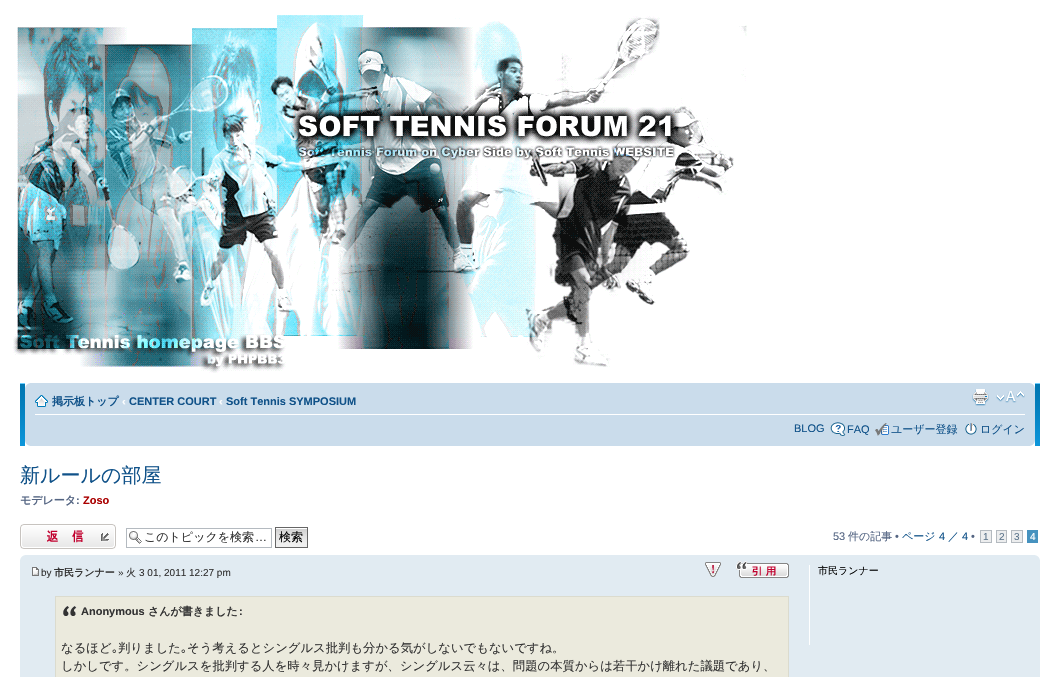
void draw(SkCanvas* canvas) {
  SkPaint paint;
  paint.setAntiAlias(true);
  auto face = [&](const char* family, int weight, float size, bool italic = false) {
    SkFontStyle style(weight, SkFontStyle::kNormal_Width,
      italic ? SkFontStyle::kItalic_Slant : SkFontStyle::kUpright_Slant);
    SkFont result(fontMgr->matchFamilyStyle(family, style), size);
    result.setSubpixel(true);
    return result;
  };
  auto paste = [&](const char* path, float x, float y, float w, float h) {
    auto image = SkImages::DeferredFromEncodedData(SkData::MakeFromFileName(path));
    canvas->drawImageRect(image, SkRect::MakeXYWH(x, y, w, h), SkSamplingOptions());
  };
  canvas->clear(0xffffffff);
  paste("img/1.png", 12, 15, 735, 358);
  paste("img/2.png", 20, 383, 1020, 63);
  paint.setColor(0xffcadceb);
  canvas->drawRect(SkRect::MakeXYWH(25, 383, 1010, 63), paint);
  paste("img/3.png", 25, 383, 5, 5);
  paste("img/4.png", 1030, 383, 5, 5);
  paint.setColor(0xffffffff);
  canvas->drawRect(SkRect::MakeXYWH(35, 414, 990, 1), paint);
  paste("img/5.png", 35, 395, 13, 12);
  paste("img/6.png", 972, 389, 17, 17);
  paste("img/7.png", 996, 391, 29, 12);
  paste("img/8.png", 830, 422, 16, 14);
  paste("img/9.png", 875, 423, 14, 13);
  paste("img/10.png", 965, 423, 12, 12);
  paste("img/11.png", 25, 441, 5, 5);
  paste("img/12.png", 1030, 441, 5, 5);
  paste("img/13.png", 20, 524, 96, 25);
  paste("img/14.png", 129, 531, 13, 13);
  paint.setStroke(true);
  paint.setStrokeWidth(1);
  paint.setColor(0xffb4bac0);
  canvas->drawRect(SkRect::MakeXYWH(126.5f, 528.5f, 145, 19), paint);
  paste("img/15.png", 276, 528, 31, 19);
  paint.setColor(0xff666666);
  canvas->drawRect(SkRect::MakeXYWH(275.5f, 527.5f, 32, 20), paint);
  paint.setStroke(false);
  paint.setColor(0xffecedee);
  canvas->drawRect(SkRect::MakeXYWH(980.5f, 530.5f, 11, 12), paint);
  paint.setStroke(true);
  paint.setColor(0xffb4bac0);
  canvas->drawRect(SkRect::MakeXYWH(980.5f, 530.5f, 11, 12), paint);
  paint.setStroke(false);
  paint.setColor(0xffecedee);
  canvas->drawRect(SkRect::MakeXYWH(996.5f, 530.5f, 10, 12), paint);
  paint.setStroke(true);
  paint.setColor(0xffb4bac0);
  canvas->drawRect(SkRect::MakeXYWH(996.5f, 530.5f, 10, 12), paint);
  paint.setStroke(false);
  paint.setColor(0xffecedee);
  canvas->drawRect(SkRect::MakeXYWH(1011.5f, 530.5f, 11, 12), paint);
  paint.setStroke(true);
  paint.setColor(0xffb4bac0);
  canvas->drawRect(SkRect::MakeXYWH(1011.5f, 530.5f, 11, 12), paint);
  paint.setStroke(false);
  paint.setColor(0xff4692bf);
  canvas->drawRect(SkRect::MakeXYWH(1027, 530, 11, 13), paint);
  paint.setColor(0xffe1ebf2);
  canvas->drawRect(SkRect::MakeXYWH(20, 555, 1020, 122), paint);
  paste("img/16.png", 20, 555, 5, 5);
  paste("img/17.png", 1035, 555, 5, 5);
  paste("img/18.png", 32, 567, 7, 9);
  paste("img/19.png", 705, 562, 16, 15);
  paste("img/20.png", 736, 561, 11, 9);
  paste("img/21.png", 737, 562, 52, 16);
  paint.setColor(0xffebeadd);
  canvas->drawRect(SkRect::MakeXYWH(56, 597, 732, 80), paint);
  paste("img/22.png", 63, 606, 14, 10);
  paint.setStroke(true);
  paint.setColor(0xffdbdbce);
  canvas->drawRect(SkRect::MakeXYWH(55.5f, 596.5f, 733, 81), paint);
  paint.setStroke(false);
  paint.setColor(0xffffffff);
  canvas->drawRect(SkRect::MakeXYWH(809, 565, 1, 80), paint);
  auto f0 = face("WenQuanYi Zen Hei", 700, 11);
  paint.setColor(0xff105289);
  canvas->drawString("掲示板トップ", 52, 405, f0, paint);
  auto f1 = face("Liberation Sans", 700, 11);
  paint.setColor(0xffffffff);
  canvas->drawString("‹", 122, 405, f1, paint);
  paint.setColor(0xff105289);
  canvas->drawString("CENTER COURT", 129, 405, f1, paint);
  paint.setColor(0xffffffff);
  canvas->drawString("‹", 219, 405, f1, paint);
  paint.setColor(0xff105289);
  canvas->drawString("Soft Tennis SYMPOSIUM", 226, 405, f1, paint);
  auto f2 = face("Liberation Sans", 400, 11);
  canvas->drawString("BLOG", 794, 432, f2, paint);
  canvas->drawString("FAQ", 847, 433, f2, paint);
  auto f3 = face("WenQuanYi Zen Hei", 500, 11);
  canvas->drawString("ユーザー登録", 891, 433, f3, paint);
  canvas->drawString("ログイン", 980, 433, f3, paint);
  auto f4 = face("WenQuanYi Zen Hei", 500, 20);
  canvas->drawString("新ルールの部屋", 20, 482, f4, paint);
  paint.setColor(0xff536482);
  canvas->drawString("モデレータ", 20, 504, f0, paint);
  canvas->drawString(":", 76, 504, f1, paint);
  paint.setColor(0xffaa0000);
  canvas->drawString("Zoso", 83, 504, f1, paint);
  auto f5 = face("WenQuanYi Zen Hei", 500, 12);
  paint.setColor(0xff333333);
  canvas->drawString("このトピックを検索", 144, 541, f5, paint);
  auto f6 = face("Liberation Sans", 400, 12);
  canvas->drawString("…", 255, 541, f6, paint);
  paint.setColor(0xff000000);
  canvas->drawString("検索", 279, 541, f5, paint);
  paint.setColor(0xff536482);
  canvas->drawString("53", 833, 540, f2, paint);
  canvas->drawString("件の記事", 848, 540, f3, paint);
  canvas->drawString("•", 895, 540, f2, paint);
  paint.setColor(0xff105289);
  canvas->drawString("ページ", 902, 540, f3, paint);
  canvas->drawString("4", 939, 540, f2, paint);
  canvas->drawString("／", 948, 540, f3, paint);
  canvas->drawString("4", 962, 540, f2, paint);
  paint.setColor(0xff536482);
  canvas->drawString("•", 971, 540, f2, paint);
  auto f7 = face("Liberation Sans", 400, 10);
  paint.setColor(0xff5c758c);
  {
    const struct { const char* s; float x, y; } items[] = {
      {"1", 983, 540},
      {"2", 999, 540},
      {"3", 1014, 540},
    };
    for (auto [s, x, y] : items) {
      canvas->drawString(s, x, y, f7, paint);
    }
  }
  paint.setColor(0xffffffff);
  canvas->drawString("4", 1030, 540, f7, paint);
  paint.setColor(0xff333333);
  canvas->drawString("by", 41, 576, f7, paint);
  auto f8 = face("WenQuanYi Zen Hei", 700, 10);
  canvas->drawString("市民ランナー", 54, 576, f8, paint);
  canvas->drawString("»", 118, 576, f7, paint);
  auto f9 = face("WenQuanYi Zen Hei", 500, 10);
  canvas->drawString("火", 126, 576, f9, paint);
  canvas->drawString("3 01, 2011 12:27 pm", 139, 576, f7, paint);
  canvas->drawString("Anonymous", 81, 615, f1, paint);
  canvas->drawString("さんが書きました", 148, 615, f0, paint);
  canvas->drawString(":", 239, 615, f1, paint);
  auto f10 = face("WenQuanYi Zen Hei", 500, 12.35f);
  canvas->drawString("なるほど", 61, 652, f10, paint);
  auto f11 = face("IPAPGothic", 400, 12.35f);
  canvas->drawString("｡", 112, 652, f11, paint);
  canvas->drawString("判りました", 118, 652, f10, paint);
  canvas->drawString("｡", 181, 652, f11, paint);
  canvas->drawString("そう考えるとシングルス批判も分かる気がしないでもないですね。", 187, 652, f10, paint);
  canvas->drawString("しかしです。シングルスを批判する人を時々見かけますが、シングルス云々は、問題の本質からは若干かけ離れた議題であり、", 61, 670, f10, paint);
  paint.setColor(0xff000000);
  canvas->drawString("市民ランナー", 818, 574, f9, paint);
}
